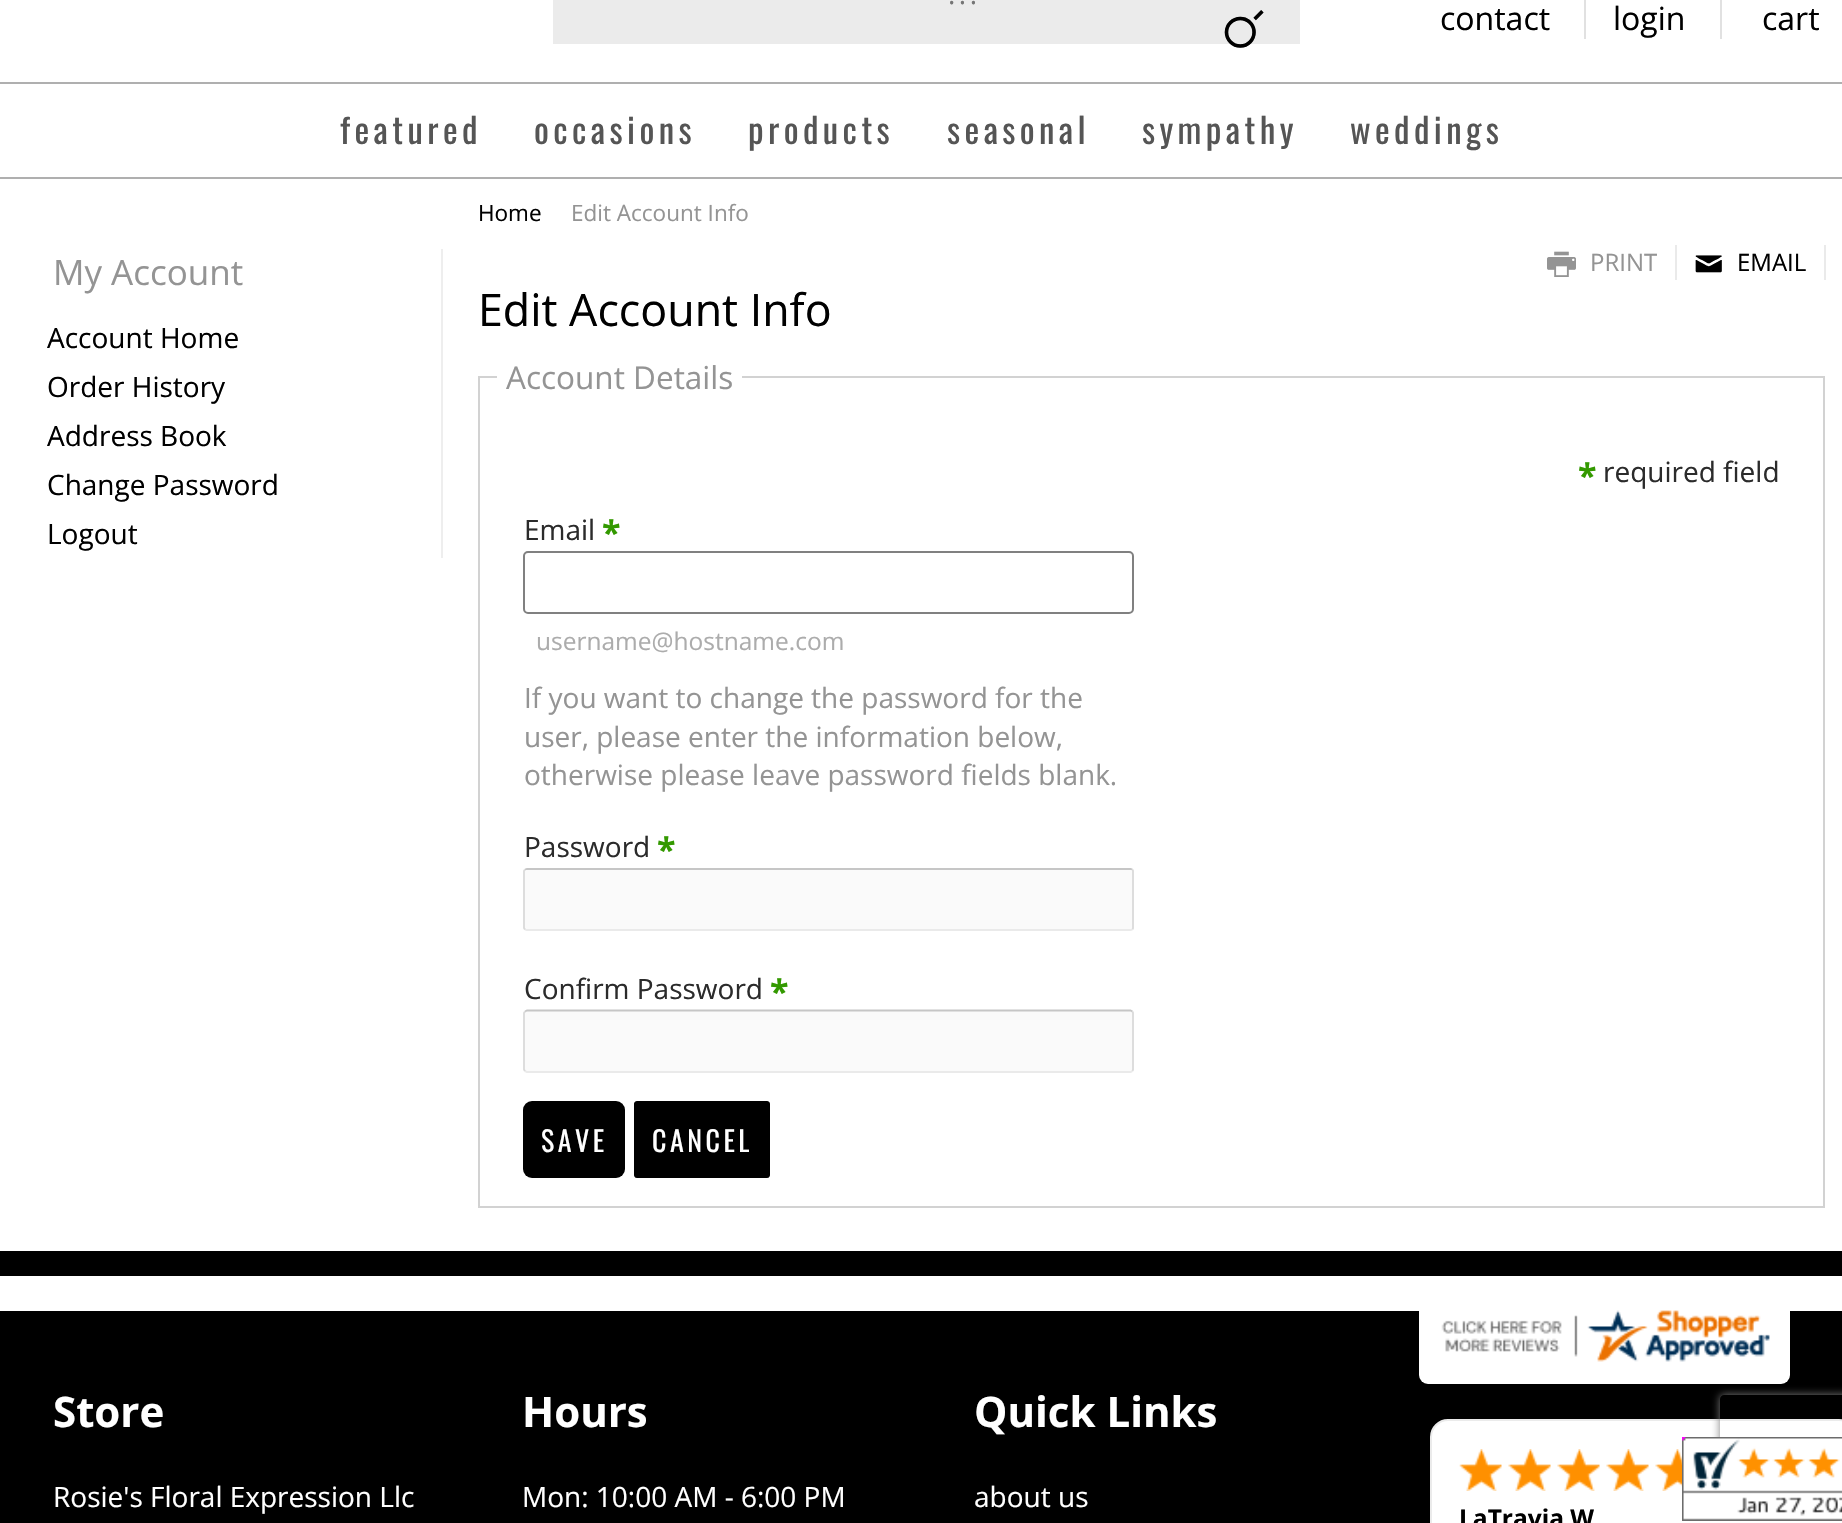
void draw(SkCanvas* canvas) {
  SkPaint paint;
  paint.setAntiAlias(true);
  auto face = [&](const char* family, int weight, float size, bool italic = false) {
    SkFontStyle style(weight, SkFontStyle::kNormal_Width,
      italic ? SkFontStyle::kItalic_Slant : SkFontStyle::kUpright_Slant);
    SkFont result(fontMgr->matchFamilyStyle(family, style), size);
    result.setSubpixel(true);
    return result;
  };
  auto writeSpaced = [&](const char* s, float x, float y, const SkFont& font, const SkPaint& ink, float letter, float word) {
    std::vector<SkGlyphID> glyphs(font.countText(s, strlen(s), SkTextEncoding::kUTF8));
    std::vector<float> xs(glyphs.size());
    font.textToGlyphs(s, strlen(s), SkTextEncoding::kUTF8, glyphs);
    font.getXPos(glyphs, xs, x);
    float extra = 0;
    for (size_t i = 0; i < glyphs.size(); i++) {
      xs[i] += extra;
      extra += letter + word * (glyphs[i] == font.unicharToGlyph(' '));
    }
    canvas->drawTextBlob(SkTextBlob::MakeFromPosHGlyphs(glyphs, xs, y, font), 0, 0, ink);
  };
  auto paste = [&](const char* path, float x, float y, float w, float h) {
    auto image = SkImages::DeferredFromEncodedData(SkData::MakeFromFileName(path));
    canvas->drawImageRect(image, SkRect::MakeXYWH(x, y, w, h), SkSamplingOptions());
  };
  auto shape = [&](const char* data, bool evenOdd = false) {
    SkPath result = *SkParsePath::FromSVGString(data);
    if (evenOdd) result.setFillType(SkPathFillType::kEvenOdd);
    return result;
  };
  canvas->clear(0xffffffff);
  {
    const struct { float x, y, w, h; SkColor color; } items[] = {
      {553, 0, 747, 44, 0xffebebeb},
      {1584, 0, 2, 39, 0xffe1e1e1},
      {1720, 0, 2, 39, 0xffe1e1e1},
      {0, 82, 1842, 2, 0xffafafaf},
      {0, 177, 1842, 2, 0xffafafaf},
      {441, 249, 2, 309, 0xffeeeeee},
      {1824, 245, 2, 35, 0xffeaeaea},
      {1675, 245, 2, 35, 0xffeaeaea},
    };
    for (auto [x, y, w, h, color] : items) {
      paint.setColor(color);
      canvas->drawRect(SkRect::MakeXYWH(x, y, w, h), paint);
    }
  }
  paint.setStroke(true);
  paint.setStrokeWidth(2);
  paint.setColor(0xffd2d2d2);
  canvas->drawRect(SkRect::MakeXYWH(479, 377, 1345, 830), paint);
  paint.setStroke(false);
  paint.setColor(0xffffffff);
  canvas->drawRect(SkRect::MakeXYWH(497, 376, 245, 2), paint);
  paint.setStroke(true);
  paint.setColor(0xff808080);
  canvas->drawRoundRect(SkRect::MakeXYWH(524, 552, 609, 61), 4, 4, paint);
  paint.setStroke(false);
  paint.setColor(0xfffafafa);
  canvas->drawRoundRect(SkRect::MakeXYWH(523, 868, 611, 63), 4, 4, paint);
  paint.setStroke(true);
  paint.setStrokeWidth(1.8f);
  paint.setColor(0xffc6c6c6);
  canvas->drawPath(shape("M525 869.5L527 869H1130.5L1132.5 869.5"), paint);
  paint.setColor(0xffdadada);
  canvas->drawPath(shape("M1132.5 869.5L1133 871V928L1132.5 929.5"), paint);
  paint.setColor(0xffeaeaea);
  canvas->drawPath(shape("M1132.5 929.5L1130.5 930H527L525 929.5"), paint);
  paint.setColor(0xffdadada);
  canvas->drawPath(shape("M525 929.5L524 928V871L525 869.5"), paint);
  paint.setStroke(false);
  paint.setColor(0xfffafafa);
  canvas->drawRoundRect(SkRect::MakeXYWH(523, 1010, 611, 63), 4, 4, paint);
  paint.setStroke(true);
  paint.setColor(0xffc6c6c6);
  canvas->drawPath(shape("M525 1011.5L527 1010.5H1130.5L1132.5 1011.5"), paint);
  paint.setColor(0xffdadada);
  canvas->drawPath(shape("M1132.5 1011.5L1133 1013V1069.5L1132.5 1071"), paint);
  paint.setColor(0xffeaeaea);
  canvas->drawPath(shape("M1132.5 1071L1130.5 1072H527L525 1071"), paint);
  paint.setColor(0xffdadada);
  canvas->drawPath(shape("M525 1071L524 1069.5V1013L525 1011.5"), paint);
  paint.setStroke(false);
  paint.setColor(0xff000000);
  canvas->drawRoundRect(SkRect::MakeXYWH(523, 1101, 102, 77), 9, 9, paint);
  canvas->drawRoundRect(SkRect::MakeXYWH(632, 1099, 140, 81), 9, 9, paint);
  paint.setStroke(true);
  paint.setStrokeWidth(2);
  paint.setColor(0xffffffff);
  canvas->drawRoundRect(SkRect::MakeXYWH(633, 1100, 138, 79), 4, 4, paint);
  paint.setStroke(false);
  paint.setColor(0xff000000);
  canvas->drawRect(SkRect::MakeXYWH(0, 1251, 1842, 25), paint);
  canvas->drawRect(SkRect::MakeXYWH(0, 1311, 1842, 212), paint);
  paint.setColor(0xffffffff);
  canvas->drawRoundRect(SkRect::MakeXYWH(1419, 1286, 371, 98), 9, 9, paint);
  paste("img/1.png", 1441, 1310, 329, 52);
  canvas->drawRoundRect(SkRect::MakeXYWH(1431, 1420, 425, 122), 17, 17, paint);
  paint.setStroke(true);
  paint.setColor(0xffebebeb);
  canvas->drawRoundRect(SkRect::MakeXYWH(1431, 1420, 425, 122), 17, 17, paint);
  paste("img/2.png", 1459, 1449, 43, 42);
  paste("img/3.png", 1508, 1449, 43, 42);
  paste("img/4.png", 1557, 1449, 43, 42);
  paste("img/5.png", 1606, 1449, 43, 42);
  paste("img/6.png", 1655, 1449, 27, 42);
  canvas->save();
  canvas->clipPath(shape("M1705 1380H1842V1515H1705ZM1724 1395H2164C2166 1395 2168 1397 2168 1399V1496C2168 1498 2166 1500 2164 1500H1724C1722 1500 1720 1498 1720 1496V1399C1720 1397 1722 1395 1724 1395Z", true), true);
  paint.setStroke(false);
  paint.setColor(0xff808080);
  paint.setMaskFilter(SkMaskFilter::MakeBlur(kNormal_SkBlurStyle, 4.5f));
  canvas->drawRoundRect(SkRect::MakeXYWH(1720, 1395, 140, 105), 4, 4, paint);
  paint.setMaskFilter(nullptr);
  canvas->restore();
  paste("img/7.png", 1682, 1437, 160, 84);
  auto f0 = face("Open Sans", 400, 28);
  paint.setColor(0xff757575);
  writeSpaced("...", 948, 4, f0, paint, 3.5f, 0);
  auto f1 = face("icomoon", 400, 42);
  paint.setColor(0xff000000);
  canvas->save();
  canvas->rotate(180, 1265, 11);
  canvas->drawString("'", 1265, 11, f1, paint);
  canvas->restore();
  auto f2 = face("Open Sans", 400, 32);
  {
    const struct { const char* s; float x, y; } items[] = {
      {"contact", 1440, 30},
      {"login", 1613, 30},
      {"cart", 1762, 30},
    };
    for (auto [s, x, y] : items) {
      canvas->drawString(s, x, y, f2, paint);
    }
  }
  auto f3 = face("Oswald", 400, 35);
  paint.setColor(0xff555555);
  {
    const struct { const char* s; float x, y; } items[] = {
      {"featured", 340, 144},
      {"occasions", 534, 144},
      {"products", 748, 144},
      {"seasonal", 947, 144},
      {"sympathy", 1142, 144},
      {"weddings", 1350, 144},
    };
    for (auto [s, x, y] : items) {
      writeSpaced(s, x, y, f3, paint, 4.4f, 0);
    }
  }
  auto f4 = face("Open Sans", 400, 35);
  paint.setColor(0xff949494);
  canvas->drawString("My Account", 53, 285, f4, paint);
  paint.setColor(0xff000000);
  {
    const struct { const char* s; float x, y; } items[] = {
      {"Account Home", 47, 348},
      {"Order History", 47, 397},
      {"Address Book", 47, 446},
      {"Change Password", 47, 495},
      {"Logout", 47, 544},
    };
    for (auto [s, x, y] : items) {
      canvas->drawString(s, x, y, f0, paint);
    }
  }
  auto f5 = face("Open Sans", 400, 22.5f);
  canvas->drawString("Home", 478, 221, f5, paint);
  paint.setColor(0xff949494);
  canvas->drawString("Edit Account Info", 571, 221, f5, paint);
  auto f6 = face("icomoon", 400, 29);
  canvas->drawString("4", 1547, 277, f6, paint);
  auto f7 = face("Open Sans", 400, 24);
  canvas->drawString("PRINT", 1590, 271, f7, paint);
  paint.setColor(0xff000000);
  canvas->drawString("<", 1694, 277, f6, paint);
  canvas->drawString("EMAIL", 1737, 271, f7, paint);
  auto f8 = face("Open Sans", 400, 44.75f);
  canvas->drawString("Edit Account Info", 478, 326, f8, paint);
  auto f9 = face("Open Sans", 400, 31.5f);
  paint.setColor(0xff949494);
  canvas->drawString("Account Details", 506, 389, f9, paint);
  auto f10 = face("Open Sans", 700, 34);
  paint.setColor(0xff339900);
  canvas->drawString("*", 1578, 488, f10, paint);
  paint.setColor(0xff2b2b2b);
  canvas->drawString("required field", 1603, 482, f0, paint);
  canvas->drawString("Email", 524, 540, f0, paint);
  paint.setColor(0xff339900);
  canvas->drawString("*", 602, 545, f10, paint);
  auto f11 = face("Open Sans", 400, 24.5f);
  paint.setColor(0xffacacac);
  canvas->drawString("username@hostname.com", 536, 650, f11, paint);
  paint.setColor(0xff949494);
  {
    const struct { const char* s; float x, y; } items[] = {
      {"If you want to change the password for the", 524, 708},
      {"user, please enter the information below,", 524, 747},
      {"otherwise please leave password fields blank.", 524, 785},
    };
    for (auto [s, x, y] : items) {
      canvas->drawString(s, x, y, f0, paint);
    }
  }
  paint.setColor(0xff2b2b2b);
  canvas->drawString("Password", 524, 857, f0, paint);
  paint.setColor(0xff339900);
  canvas->drawString("*", 657, 862, f10, paint);
  paint.setColor(0xff2b2b2b);
  canvas->drawString("Confirm Password", 524, 999, f0, paint);
  paint.setColor(0xff339900);
  canvas->drawString("*", 770, 1004, f10, paint);
  auto f12 = face("Oswald", 400, 28);
  paint.setColor(0xffffffff);
  writeSpaced("SAVE", 541, 1152, f12, paint, 3.5f, 0);
  writeSpaced("CANCEL", 652, 1152, f12, paint, 3.5f, 0);
  auto f13 = face("Open Sans", 700, 42);
  canvas->drawString("Store", 53, 1427, f13, paint);
  canvas->drawString("Rosie's Floral Expression Llc", 53, 1507, f0, paint);
  canvas->drawString("Hours", 522, 1427, f13, paint);
  canvas->drawString("Mon: 10:00 AM - 6:00 PM", 522, 1507, f0, paint);
  canvas->drawString("Quick Links", 974, 1427, f13, paint);
  canvas->drawString("about us", 974, 1507, f0, paint);
  auto f14 = face("Open Sans", 700, 24.5f);
  paint.setColor(0xff000000);
  canvas->drawString("LaTravia W", 1459, 1527, f14, paint);
}
